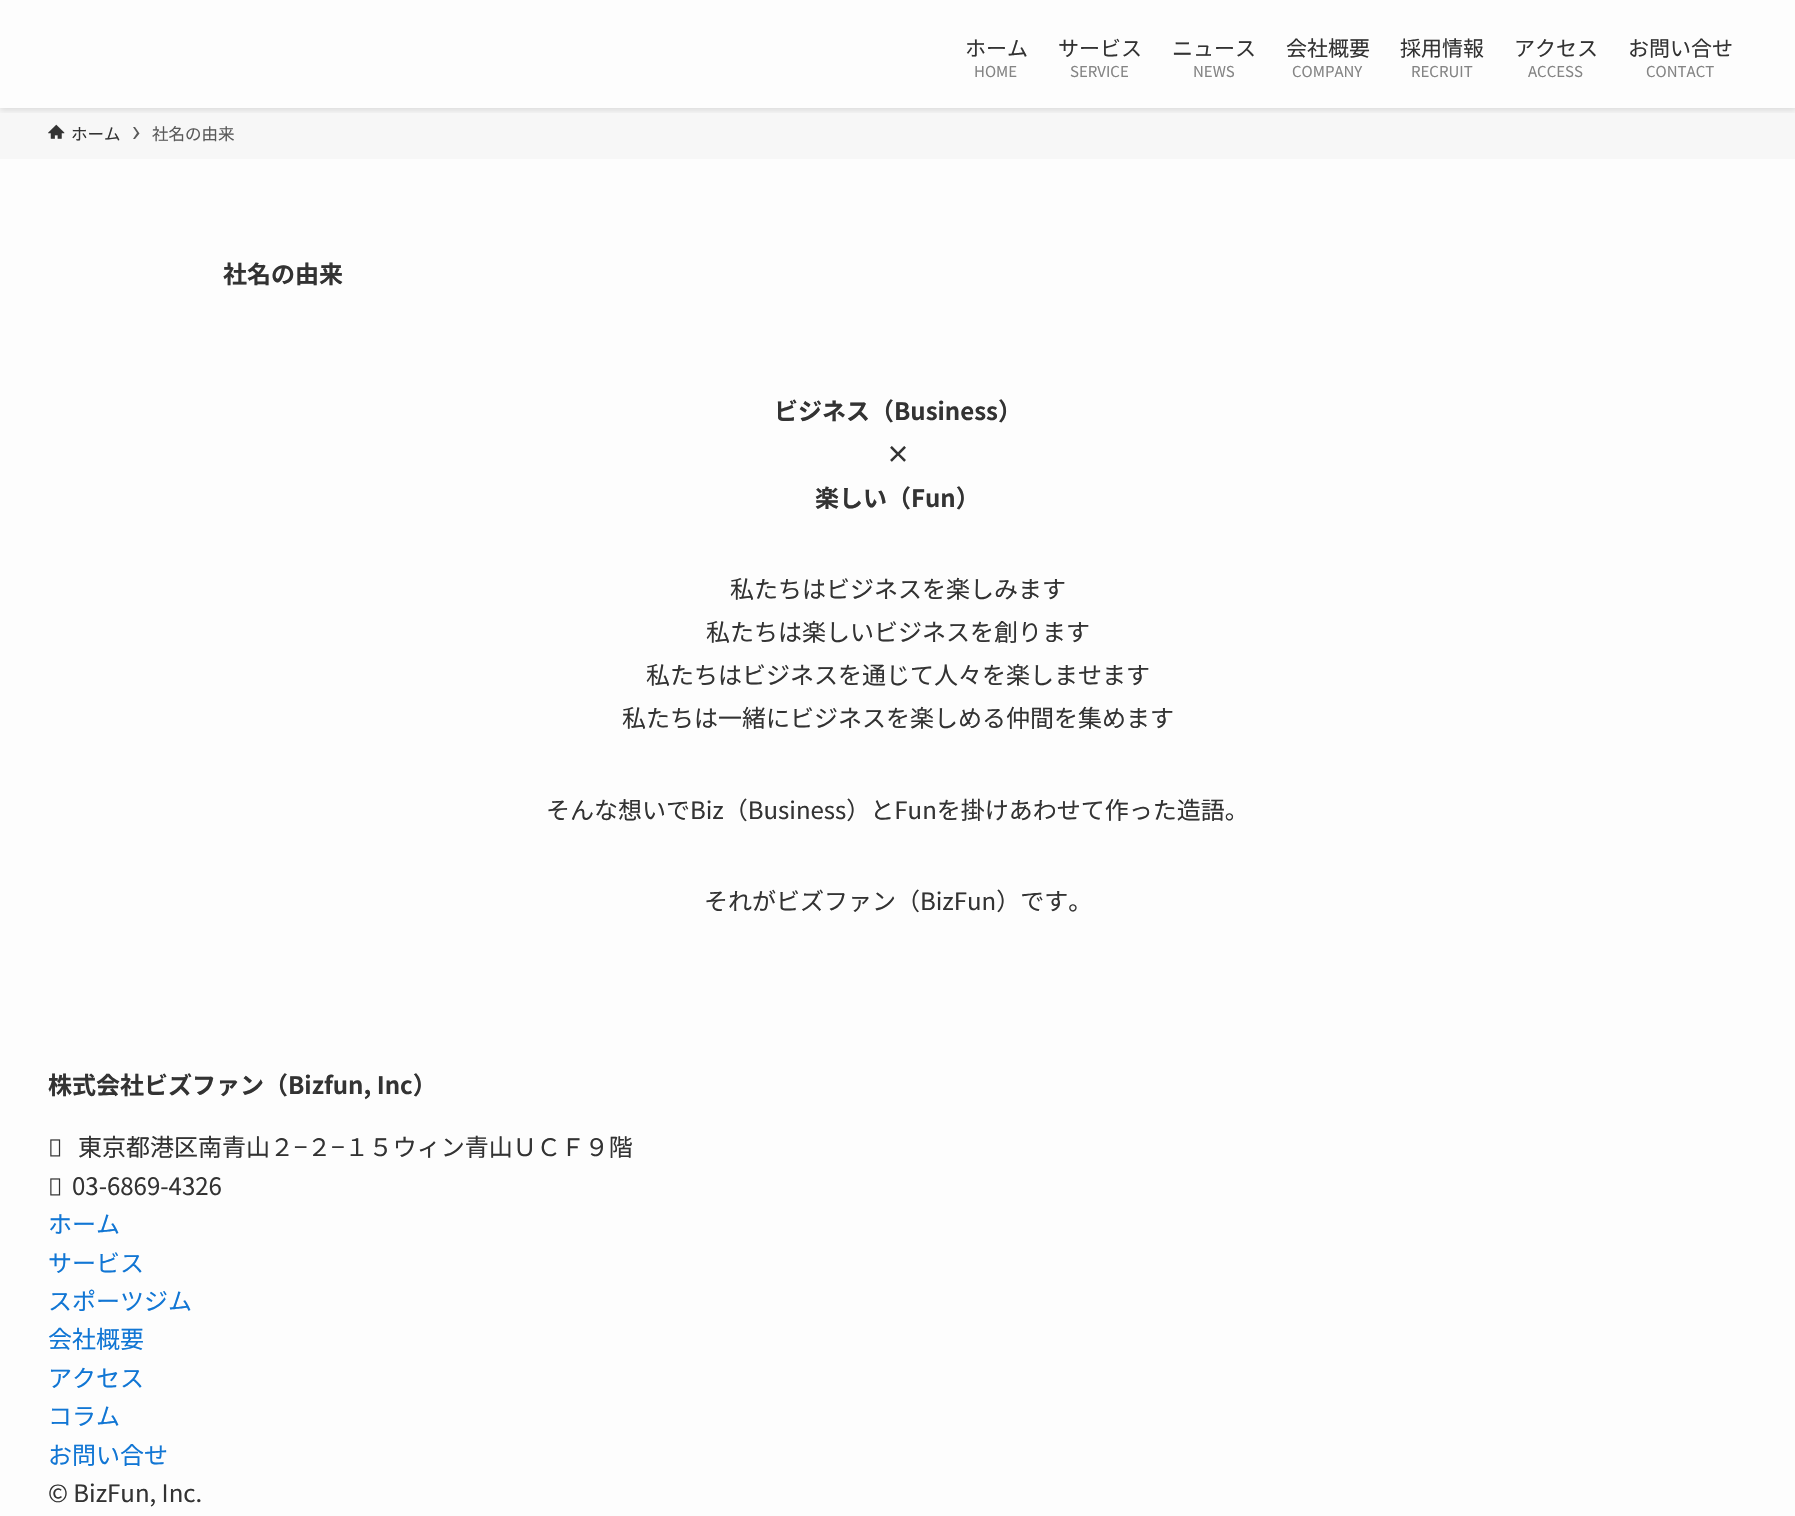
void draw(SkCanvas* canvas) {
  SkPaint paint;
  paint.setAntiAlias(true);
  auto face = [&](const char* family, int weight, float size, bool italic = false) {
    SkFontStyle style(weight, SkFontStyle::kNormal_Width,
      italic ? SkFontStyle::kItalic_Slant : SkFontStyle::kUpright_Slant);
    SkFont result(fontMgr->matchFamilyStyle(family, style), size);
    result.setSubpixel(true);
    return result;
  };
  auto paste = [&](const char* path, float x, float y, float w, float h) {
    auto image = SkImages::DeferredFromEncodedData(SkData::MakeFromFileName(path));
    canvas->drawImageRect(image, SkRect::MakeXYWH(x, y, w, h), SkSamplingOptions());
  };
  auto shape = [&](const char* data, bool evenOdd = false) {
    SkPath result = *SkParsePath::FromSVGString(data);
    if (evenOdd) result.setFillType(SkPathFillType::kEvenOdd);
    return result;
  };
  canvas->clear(0xfffdfdfd);
  paint.setColor(0xfff7f7f7);
  canvas->drawRect(SkRect::MakeXYWH(0, 108, 1795, 51), paint);
  canvas->save();
  canvas->clipRect(SkRect::MakeXYWH(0, 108, 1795, 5));
  paint.setColor(0x1f000000);
  paint.setMaskFilter(SkMaskFilter::MakeBlur(kNormal_SkBlurStyle, 3));
  canvas->drawRect(SkRect::MakeXYWH(0, 2, 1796, 108), paint);
  paint.setMaskFilter(nullptr);
  canvas->restore();
  paste("img/1.png", 48, 124, 17, 15);
  paint.setColor(0xff5a5a5a);
  canvas->drawPath(shape("M135 127H133L137 133L133 139H135L139.5 133.5Z"), paint);
  paste("img/2.png", 50, 1139, 11, 18);
  paste("img/2.png", 50, 1178, 11, 18);
  auto f0 = face("Noto Sans JP", 400, 21);
  paint.setColor(0xff333333);
  canvas->drawString("ホーム", 965, 56, f0, paint);
  auto f1 = face("Noto Sans JP", 400, 15);
  paint.setColor(0xff848484);
  canvas->drawString("HOME", 974, 77, f1, paint);
  paint.setColor(0xff333333);
  canvas->drawString("サービス", 1058, 56, f0, paint);
  paint.setColor(0xff848484);
  canvas->drawString("SERVICE", 1070, 77, f1, paint);
  paint.setColor(0xff333333);
  canvas->drawString("ニュース", 1172, 56, f0, paint);
  paint.setColor(0xff848484);
  canvas->drawString("NEWS", 1193, 77, f1, paint);
  paint.setColor(0xff333333);
  canvas->drawString("会社概要", 1286, 56, f0, paint);
  paint.setColor(0xff848484);
  canvas->drawString("COMPANY", 1292, 77, f1, paint);
  paint.setColor(0xff333333);
  canvas->drawString("採用情報", 1400, 56, f0, paint);
  paint.setColor(0xff848484);
  canvas->drawString("RECRUIT", 1411, 77, f1, paint);
  paint.setColor(0xff333333);
  canvas->drawString("アクセス", 1514, 56, f0, paint);
  paint.setColor(0xff848484);
  canvas->drawString("ACCESS", 1528, 77, f1, paint);
  paint.setColor(0xff333333);
  canvas->drawString("お問い合せ", 1628, 56, f0, paint);
  paint.setColor(0xff848484);
  canvas->drawString("CONTACT", 1646, 77, f1, paint);
  auto f2 = face("Noto Sans JP", 400, 16.5f);
  paint.setColor(0xff333333);
  canvas->drawString("ホーム", 71, 140, f2, paint);
  paint.setColor(0xff5a5a5a);
  canvas->drawString("社名の由来", 152, 140, f2, paint);
  auto f3 = face("Noto Sans JP", 700, 24);
  paint.setColor(0xff333333);
  {
    const struct { const char* s; float x, y; } items[] = {
      {"社名の由来", 223, 283},
      {"ビジネス（Business）", 774, 420},
      {"×", 886, 463},
      {"楽しい（Fun）", 815, 507},
    };
    for (auto [s, x, y] : items) {
      canvas->drawString(s, x, y, f3, paint);
    }
  }
  auto f4 = face("Noto Sans JP", 400, 24);
  {
    const struct { const char* s; float x, y; } items[] = {
      {"私たちはビジネスを楽しみます", 730, 598},
      {"私たちは楽しいビジネスを創ります", 706, 641},
      {"私たちはビジネスを通じて人々を楽しませます", 646, 684},
      {"私たちは一緒にビジネスを楽しめる仲間を集めます", 622, 727},
      {"そんな想いでBiz（Business）とFunを掛けあわせて作った造語。", 546, 819},
      {"それがビズファン（BizFun）です。", 704, 910},
    };
    for (auto [s, x, y] : items) {
      canvas->drawString(s, x, y, f4, paint);
    }
  }
  canvas->drawString("株式会社ビズファン（Bizfun, Inc）", 48, 1094, f3, paint);
  canvas->drawString("東京都港区南青山２−２−１５ウィン青山ＵＣＦ９階", 78, 1156, f4, paint);
  canvas->drawString("03-6869-4326", 72, 1195, f4, paint);
  paint.setColor(0xff1176d4);
  {
    const struct { const char* s; float x, y; } items[] = {
      {"ホーム", 48, 1233},
      {"サービス", 48, 1272},
      {"スポーツジム", 48, 1310},
      {"会社概要", 48, 1348},
      {"アクセス", 48, 1387},
      {"コラム", 48, 1425},
      {"お問い合せ", 48, 1464},
    };
    for (auto [s, x, y] : items) {
      canvas->drawString(s, x, y, f4, paint);
    }
  }
  paint.setColor(0xff333333);
  canvas->drawString("© BizFun, Inc.", 48, 1502, f4, paint);
}
